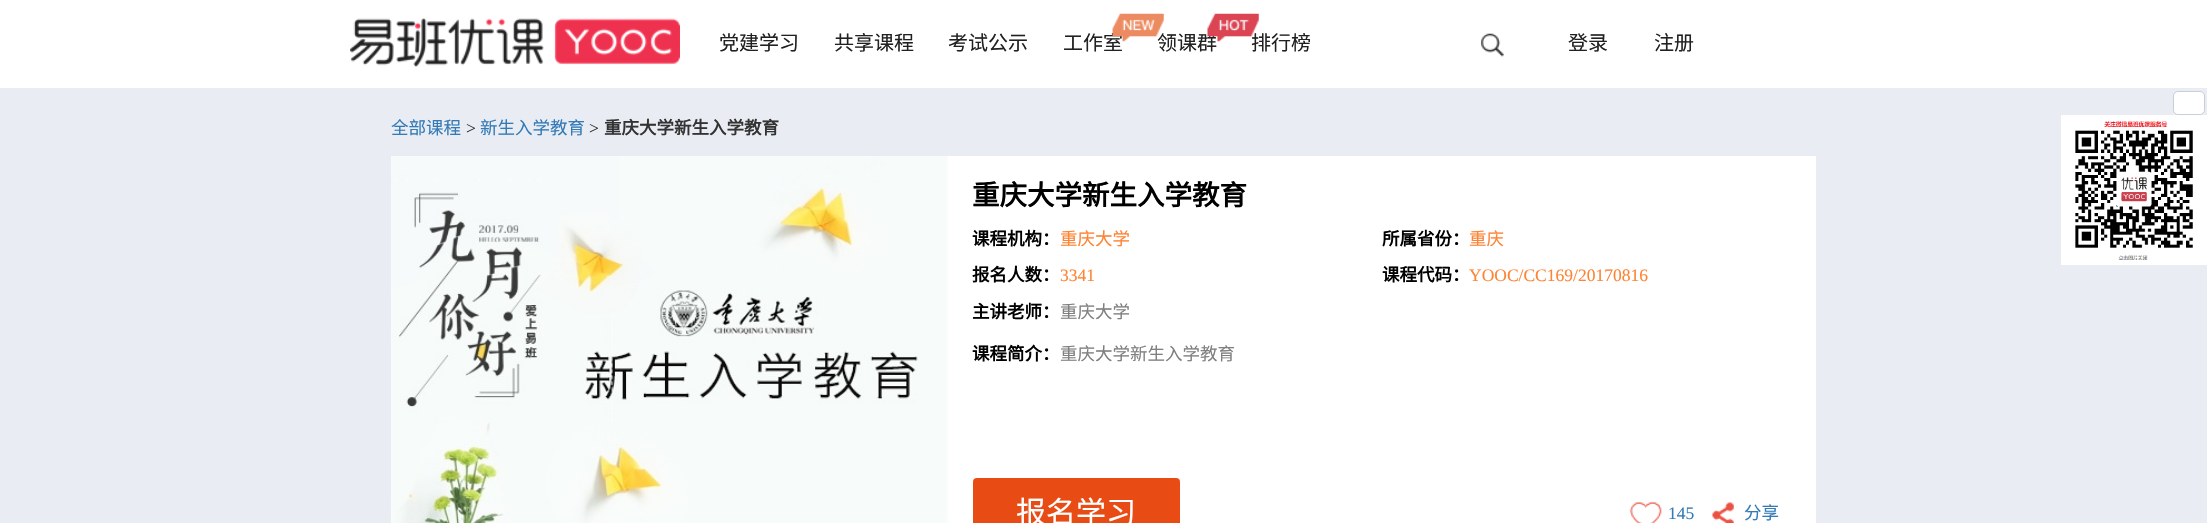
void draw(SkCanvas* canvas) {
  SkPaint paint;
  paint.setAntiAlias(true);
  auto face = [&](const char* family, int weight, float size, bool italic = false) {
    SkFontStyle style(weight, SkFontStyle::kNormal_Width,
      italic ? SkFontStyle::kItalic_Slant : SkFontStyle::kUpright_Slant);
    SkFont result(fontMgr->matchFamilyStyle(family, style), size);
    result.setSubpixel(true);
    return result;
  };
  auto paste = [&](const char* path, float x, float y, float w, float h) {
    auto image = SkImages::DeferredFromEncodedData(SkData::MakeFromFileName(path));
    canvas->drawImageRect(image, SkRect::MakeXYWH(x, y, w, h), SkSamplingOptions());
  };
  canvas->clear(0xffffffff);
  paste("img/1.png", 350, 18, 330, 49);
  paste("img/4.png", 1481, 33, 23, 24);
  paint.setColor(0xffe9edf3);
  canvas->drawRect(SkRect::MakeXYWH(0, 88, 2207, 435), paint);
  paint.setColor(0xffffffff);
  canvas->drawRect(SkRect::MakeXYWH(391, 156, 1425, 367), paint);
  paste("img/5.png", 391, 156, 557, 367);
  paint.setColor(0xffe94b15);
  canvas->drawRoundRect(SkRect::MakeXYWH(973, 478, 207, 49), 4, 4, paint);
  paste("img/6.png", 1630, 501, 32, 22);
  paste("img/7.png", 1712, 502, 22, 21);
  paint.setColor(0xffffffff);
  canvas->drawRoundRect(SkRect::MakeXYWH(2173.5f, 91.5f, 31, 23), 4.5f, 4.5f, paint);
  paint.setStroke(true);
  paint.setStrokeWidth(1);
  paint.setColor(0xffc8cfd7);
  canvas->drawRoundRect(SkRect::MakeXYWH(2173.5f, 91.5f, 31, 23), 4.5f, 4.5f, paint);
  paste("img/8.png", 2061, 115, 146, 150);
  auto f0 = face("Noto Sans CJK SC", 400, 20);
  paint.setStroke(false);
  paint.setColor(0xff212121);
  {
    const struct { const char* s; float x, y; } items[] = {
      {"党建学习", 719, 50},
      {"共享课程", 834, 50},
      {"考试公示", 948, 50},
      {"工作室", 1063, 50},
    };
    for (auto [s, x, y] : items) {
      canvas->drawString(s, x, y, f0, paint);
    }
  }
  paste("img/2.png", 1112, 13, 52, 29);
  canvas->drawString("领课群", 1157, 50, f0, paint);
  paste("img/3.png", 1207, 13, 52, 29);
  {
    const struct { const char* s; float x, y; } items[] = {
      {"排行榜", 1251, 50},
      {"登录", 1568, 50},
      {"注册", 1654, 50},
    };
    for (auto [s, x, y] : items) {
      canvas->drawString(s, x, y, f0, paint);
    }
  }
  auto f1 = face("Noto Sans CJK SC", 400, 17.5f);
  paint.setColor(0xff337ab7);
  canvas->drawString("全部课程", 391, 134, f1, paint);
  auto f2 = face("Liberation Serif", 400, 17.5f);
  paint.setColor(0xff333333);
  canvas->drawString(">", 466, 134, f2, paint);
  paint.setColor(0xff337ab7);
  canvas->drawString("新生入学教育", 480, 134, f1, paint);
  paint.setColor(0xff333333);
  canvas->drawString(">", 589, 134, f2, paint);
  auto f3 = face("Noto Sans CJK SC", 700, 17.5f);
  canvas->drawString("重庆大学新生入学教育", 604, 134, f3, paint);
  auto f4 = face("Noto Sans CJK SC", 700, 27.5f);
  paint.setColor(0xff000000);
  canvas->drawString("重庆大学新生入学教育", 972, 205, f4, paint);
  canvas->drawString("课程机构：", 972, 245, f3, paint);
  paint.setColor(0xfffe8333);
  canvas->drawString("重庆大学", 1060, 245, f1, paint);
  paint.setColor(0xff000000);
  canvas->drawString("所属省份：", 1382, 245, f3, paint);
  paint.setColor(0xfffe8333);
  canvas->drawString("重庆", 1469, 245, f1, paint);
  paint.setColor(0xff000000);
  canvas->drawString("报名人数：", 972, 281, f3, paint);
  paint.setColor(0xfffe8333);
  canvas->drawString("3341", 1060, 281, f2, paint);
  paint.setColor(0xff000000);
  canvas->drawString("课程代码：", 1382, 281, f3, paint);
  paint.setColor(0xfffe8333);
  canvas->drawString("YOOC/CC169/20170816", 1469, 281, f2, paint);
  paint.setColor(0xff000000);
  canvas->drawString("主讲老师：", 972, 318, f3, paint);
  paint.setColor(0xff7f7f7f);
  canvas->drawString("重庆大学", 1060, 318, f1, paint);
  paint.setColor(0xff000000);
  canvas->drawString("课程简介：", 972, 360, f3, paint);
  paint.setColor(0xff7f7f7f);
  canvas->drawString("重庆大学新生入学教育", 1060, 360, f1, paint);
  auto f5 = face("Noto Sans CJK SC", 400, 30);
  paint.setColor(0xffffffff);
  canvas->drawString("报名学习", 1016, 523, f5, paint);
  paint.setColor(0xff337ab7);
  canvas->drawString("145", 1668, 519, f2, paint);
  canvas->drawString("分享", 1744, 519, f1, paint);
}
